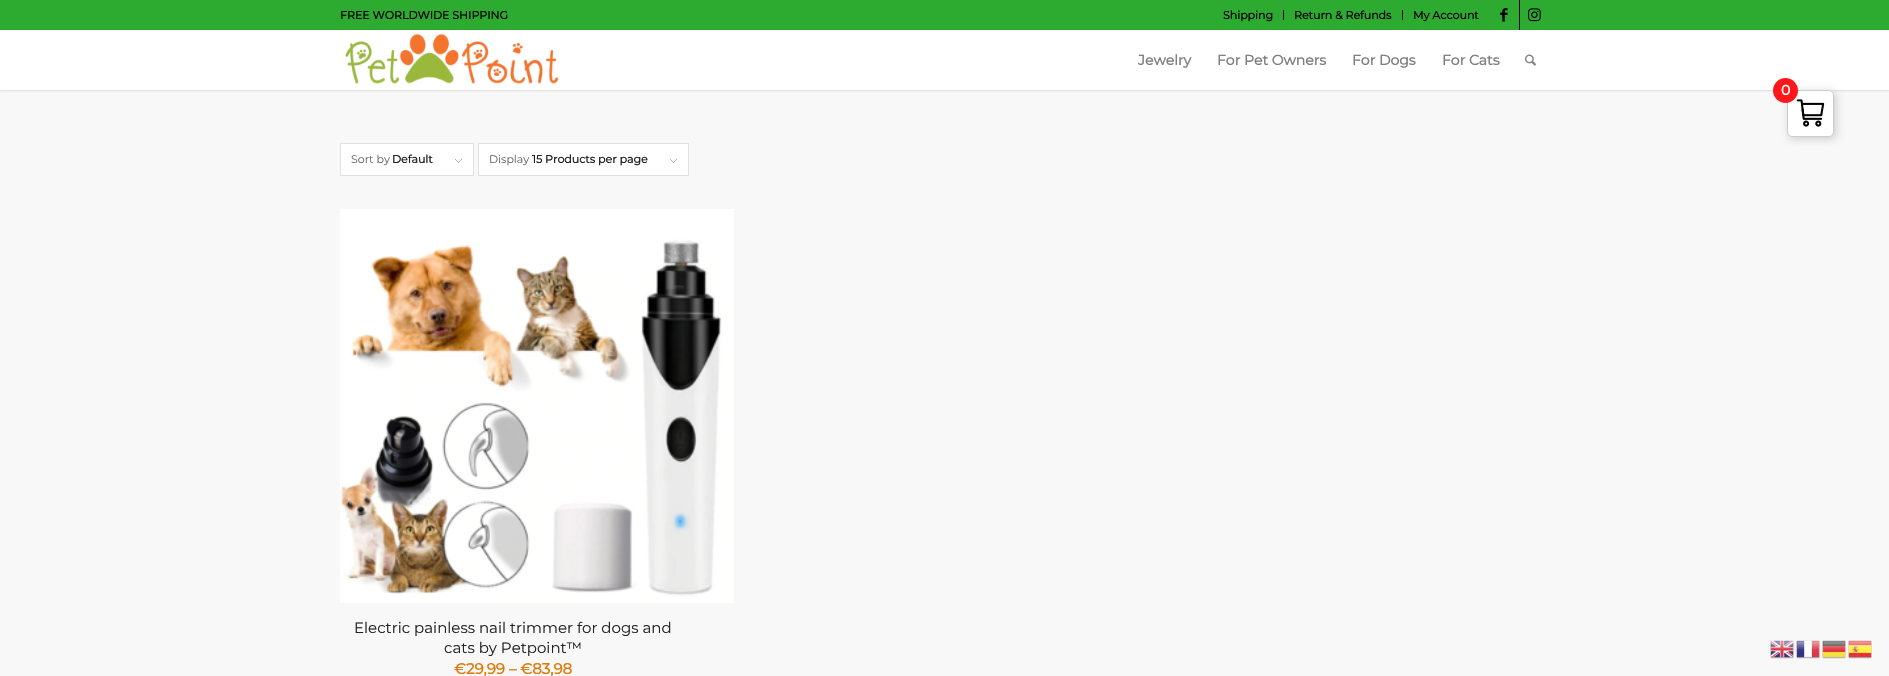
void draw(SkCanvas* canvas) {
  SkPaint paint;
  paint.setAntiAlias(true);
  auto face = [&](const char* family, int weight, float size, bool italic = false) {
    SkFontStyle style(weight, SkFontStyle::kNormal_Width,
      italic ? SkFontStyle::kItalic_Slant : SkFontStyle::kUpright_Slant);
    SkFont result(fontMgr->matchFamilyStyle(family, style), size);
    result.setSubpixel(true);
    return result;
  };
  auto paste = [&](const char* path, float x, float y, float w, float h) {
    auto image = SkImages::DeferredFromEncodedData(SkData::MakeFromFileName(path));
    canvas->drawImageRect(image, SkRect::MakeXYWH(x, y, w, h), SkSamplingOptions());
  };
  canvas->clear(0xffffffff);
  paint.setColor(0xfff8f8f8);
  canvas->drawRect(SkRect::MakeXYWH(0, 90, 1889, 586), paint);
  canvas->save();
  canvas->clipRect(SkRect::MakeXYWH(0, 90, 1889, 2));
  paint.setColor(0x1a000000);
  paint.setMaskFilter(SkMaskFilter::MakeBlur(kNormal_SkBlurStyle, 1));
  canvas->drawRect(SkRect::MakeXYWH(-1, -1, 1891, 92), paint);
  paint.setMaskFilter(nullptr);
  canvas->restore();
  {
    const struct { float x, y, w, h; SkColor color; } items[] = {
      {0, 0, 1889, 30, 0xff2cab30},
      {1283, 10, 1, 10, 0xff000000},
      {1402, 10, 1, 10, 0xff000000},
      {1519, 0, 1, 30, 0xff000000},
    };
    for (auto [x, y, w, h, color] : items) {
      paint.setColor(color);
      canvas->drawRect(SkRect::MakeXYWH(x, y, w, h), paint);
    }
  }
  paste("img/1.png", 1500, 8, 8, 14);
  paste("img/2.png", 1528, 8, 13, 14);
  paste("img/3.png", 345, 33, 214, 51);
  paste("img/4.png", 1525, 54, 11, 12);
  paint.setColor(0xffffffff);
  canvas->drawRect(SkRect::MakeXYWH(341, 144, 132, 31), paint);
  paste("img/5.png", 455, 159, 7, 4);
  paint.setStroke(true);
  paint.setStrokeWidth(1);
  paint.setColor(0xffe1e1e1);
  canvas->drawRect(SkRect::MakeXYWH(340.5f, 143.5f, 133, 32), paint);
  paint.setStroke(false);
  paint.setColor(0xffffffff);
  canvas->drawRect(SkRect::MakeXYWH(479, 144, 209, 31), paint);
  paste("img/5.png", 670, 159, 7, 4);
  paint.setStroke(true);
  paint.setColor(0xffe1e1e1);
  canvas->drawRect(SkRect::MakeXYWH(478.5f, 143.5f, 210, 32), paint);
  paste("img/6.png", 340, 209, 394, 394);
  paint.setStroke(false);
  paint.setColor(0xffcccccc);
  paint.setMaskFilter(SkMaskFilter::MakeBlur(kNormal_SkBlurStyle, 4));
  canvas->drawRoundRect(SkRect::MakeXYWH(1789, 92, 47, 47), 5, 5, paint);
  paint.setMaskFilter(nullptr);
  paint.setColor(0xffffffff);
  canvas->drawRoundRect(SkRect::MakeXYWH(1787.5f, 90.5f, 46, 46), 4.5f, 4.5f, paint);
  paint.setStroke(true);
  paint.setColor(0xffcccccc);
  canvas->drawRoundRect(SkRect::MakeXYWH(1787.5f, 90.5f, 46, 46), 4.5f, 4.5f, paint);
  paste("img/7.png", 1796, 99, 29, 28);
  paint.setStroke(false);
  paint.setColor(0xffff171a);
  canvas->drawCircle(1785.5f, 90.5f, 12.5f, paint);
  paste("img/8.png", 1770, 640, 24, 19);
  paste("img/9.png", 1796, 640, 24, 19);
  paste("img/10.png", 1822, 640, 24, 19);
  paste("img/11.png", 1848, 640, 24, 19);
  auto f0 = face("Montserrat", 700, 11);
  paint.setColor(0xff000000);
  {
    const struct { const char* s; float x, y; } items[] = {
      {"FREE WORLDWIDE SHIPPING", 340, 19},
      {"Shipping", 1223, 19},
      {"Return & Refunds", 1294, 19},
      {"My Account", 1413, 19},
    };
    for (auto [s, x, y] : items) {
      canvas->drawString(s, x, y, f0, paint);
    }
  }
  auto f1 = face("Montserrat", 700, 14);
  paint.setColor(0xff808080);
  {
    const struct { const char* s; float x, y; } items[] = {
      {"Jewelry", 1138, 65},
      {"For Pet Owners", 1217, 65},
      {"For Dogs", 1352, 65},
      {"For Cats", 1442, 65},
    };
    for (auto [s, x, y] : items) {
      canvas->drawString(s, x, y, f1, paint);
    }
  }
  auto f2 = face("Montserrat", 100, 11);
  paint.setColor(0xff666666);
  canvas->drawString("Sort by", 351, 163, f2, paint);
  paint.setColor(0xff222222);
  canvas->drawString("Default", 392, 163, f0, paint);
  paint.setColor(0xff666666);
  canvas->drawString("Display", 489, 163, f2, paint);
  paint.setColor(0xff222222);
  canvas->drawString("15 Products per page", 532, 163, f0, paint);
  auto f3 = face("Montserrat", 100, 15);
  canvas->drawString("Electric painless nail trimmer for dogs and", 354, 633, f3, paint);
  canvas->drawString("cats by Petpoint™", 444, 653, f3, paint);
  auto f4 = face("Montserrat", 700, 15);
  paint.setColor(0xffde7a07);
  canvas->drawString("€29,99 – €83,98", 454, 674, f4, paint);
  paint.setColor(0xffffffff);
  canvas->drawString("0", 1781, 95, f1, paint);
}
